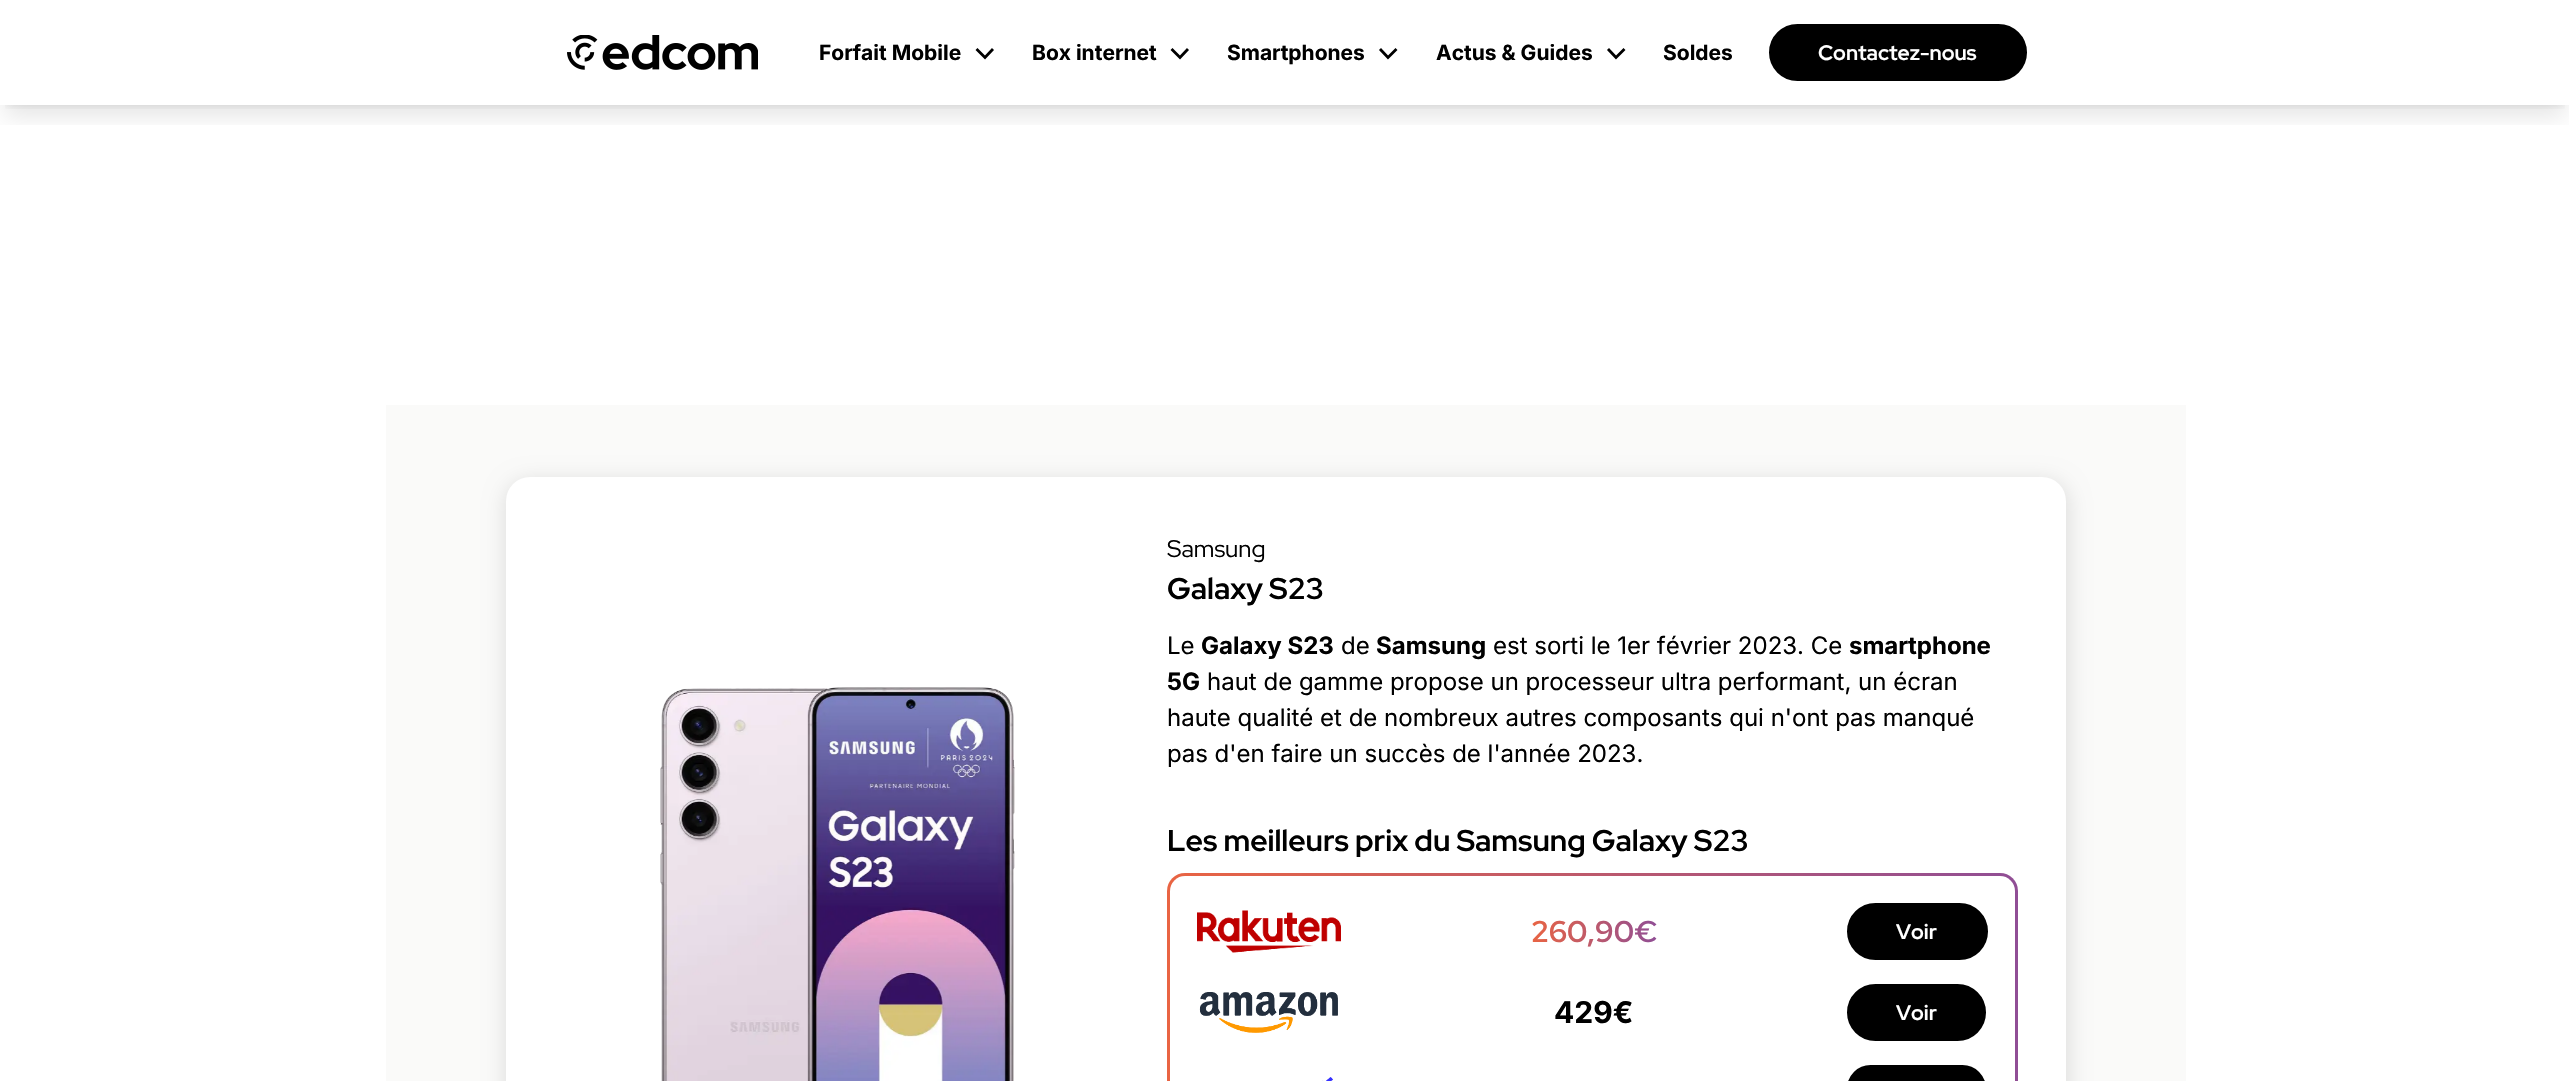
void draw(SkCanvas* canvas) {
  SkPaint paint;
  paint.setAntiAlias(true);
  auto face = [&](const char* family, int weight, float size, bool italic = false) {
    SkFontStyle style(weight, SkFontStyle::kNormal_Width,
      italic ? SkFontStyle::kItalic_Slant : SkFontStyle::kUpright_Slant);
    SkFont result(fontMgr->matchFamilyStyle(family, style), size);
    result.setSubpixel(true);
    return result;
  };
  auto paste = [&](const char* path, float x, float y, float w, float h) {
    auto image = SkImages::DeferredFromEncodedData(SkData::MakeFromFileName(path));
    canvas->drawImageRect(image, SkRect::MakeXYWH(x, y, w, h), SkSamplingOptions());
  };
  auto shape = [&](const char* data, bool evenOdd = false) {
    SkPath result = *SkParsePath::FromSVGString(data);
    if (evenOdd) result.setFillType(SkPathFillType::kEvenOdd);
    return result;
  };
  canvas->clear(0xffffffff);
  canvas->save();
  canvas->clipRect(SkRect::MakeXYWH(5, 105, 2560, 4));
  paint.setColor(0x1a000000);
  paint.setMaskFilter(SkMaskFilter::MakeBlur(kNormal_SkBlurStyle, 4.5f));
  canvas->drawRect(SkRect::MakeXYWH(6, 12, 2558, 93), paint);
  paint.setMaskFilter(nullptr);
  canvas->restore();
  canvas->save();
  canvas->clipRect(SkRect::MakeXYWH(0, 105, 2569, 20));
  paint.setMaskFilter(SkMaskFilter::MakeBlur(kNormal_SkBlurStyle, 11));
  canvas->drawRect(SkRect::MakeXYWH(5, 20, 2560, 96), paint);
  paint.setMaskFilter(nullptr);
  canvas->restore();
  paste("img/1.png", 567, 35, 191, 35);
  paint.setStroke(true);
  paint.setStrokeWidth(2.8f);
  paint.setColor(0xff000000);
  canvas->drawPath(shape("M976.5 49L985 57.5L993 49"), paint);
  canvas->drawPath(shape("M1171.5 49L1180 57.5L1188 49"), paint);
  canvas->drawPath(shape("M1380 49L1388 57.5L1396.5 49"), paint);
  canvas->drawPath(shape("M1608 49L1616 57.5L1624.5 49"), paint);
  paint.setStroke(false);
  canvas->drawRoundRect(SkRect::MakeXYWH(1770, 25, 256, 55), 27.5f, 27.5f, paint);
  paint.setStroke(true);
  paint.setStrokeWidth(2);
  canvas->drawRoundRect(SkRect::MakeXYWH(1770, 25, 256, 55), 27.5f, 27.5f, paint);
  paint.setStroke(false);
  paint.setColor(0xfffafaf9);
  canvas->drawRect(SkRect::MakeXYWH(386, 405, 1800, 676), paint);
  paint.setColor(0x1a000000);
  paint.setMaskFilter(SkMaskFilter::MakeBlur(kNormal_SkBlurStyle, 10));
  canvas->drawRoundRect(SkRect::MakeXYWH(504, 479, 1566, 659), 27, 27, paint);
  paint.setMaskFilter(nullptr);
  paint.setColor(0xffffffff);
  canvas->drawRoundRect(SkRect::MakeXYWH(506, 477, 1560, 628), 24, 24, paint);
  paste("img/2.png", 660, 687, 355, 394);
  {
    const SkColor colors[] = {0xffe96443, 0xff904e95};
    const float stops[] = {0, 1};
    const SkPoint ends[] = {{1167, 1013}, {2018, 1013}};
    paint.setShader(SkGradientShader::MakeLinear(ends, colors, stops, 2, SkTileMode::kClamp));
    paint.setAlpha(255);
  }
  canvas->drawRoundRect(SkRect::MakeXYWH(1167, 873, 851, 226), 18, 18, paint);
  paint.setShader(nullptr);
  paint.setColor(0xffffffff);
  canvas->drawRoundRect(SkRect::MakeXYWH(1170, 876, 845, 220), 15, 15, paint);
  paste("img/3.png", 1197, 910, 144, 43);
  paint.setColor(0xff000000);
  canvas->drawRoundRect(SkRect::MakeXYWH(1848, 904, 139, 55), 27.5f, 27.5f, paint);
  paint.setStroke(true);
  canvas->drawRoundRect(SkRect::MakeXYWH(1848, 904, 139, 55), 27.5f, 27.5f, paint);
  paste("img/4.png", 1199, 992, 139, 41);
  paint.setStroke(false);
  canvas->drawRoundRect(SkRect::MakeXYWH(1848, 985, 137, 55), 27.5f, 27.5f, paint);
  paint.setStroke(true);
  canvas->drawRoundRect(SkRect::MakeXYWH(1848, 985, 137, 55), 27.5f, 27.5f, paint);
  paste("img/5.png", 1322, 1077, 11, 4);
  paint.setStroke(false);
  canvas->drawRoundRect(SkRect::MakeXYWH(1848, 1066, 137, 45), 27.5f, 27.5f, paint);
  paint.setStroke(true);
  canvas->drawRoundRect(SkRect::MakeXYWH(1848, 1066, 137, 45), 27.5f, 27.5f, paint);
  auto f0 = face("Inter", 700, 21);
  paint.setStroke(false);
  {
    const struct { const char* s; float x, y; } items[] = {
      {"Forfait Mobile", 819, 60},
      {"Box internet", 1032, 60},
      {"Smartphones", 1227, 60},
      {"Actus & Guides", 1436, 60},
      {"Soldes", 1663, 60},
    };
    for (auto [s, x, y] : items) {
      canvas->drawString(s, x, y, f0, paint);
    }
  }
  auto f1 = face("Red Hat Display", 700, 21);
  paint.setColor(0xffffffff);
  canvas->drawString("Contactez-nous", 1818, 60, f1, paint);
  auto f2 = face("Red Hat Display", 400, 24);
  paint.setColor(0xff000000);
  canvas->drawString("Samsung", 1167, 557, f2, paint);
  auto f3 = face("Red Hat Display", 700, 30);
  canvas->drawString("Galaxy S23", 1167, 599, f3, paint);
  auto f4 = face("Inter", 400, 24);
  canvas->drawString("Le", 1167, 654, f4, paint);
  auto f5 = face("Inter", 700, 24);
  canvas->drawString("Galaxy S23", 1201, 654, f5, paint);
  canvas->drawString("de", 1341, 654, f4, paint);
  canvas->drawString("Samsung", 1376, 654, f5, paint);
  canvas->drawString("est sorti le 1er février 2023. Ce", 1493, 654, f4, paint);
  canvas->drawString("smartphone", 1849, 654, f5, paint);
  canvas->drawString("5G", 1167, 690, f5, paint);
  {
    const struct { const char* s; float x, y; } items[] = {
      {"haut de gamme propose un processeur ultra performant, un écran", 1207, 690},
      {"haute qualité et de nombreux autres composants qui n'ont pas manqué", 1167, 726},
      {"pas d'en faire un succès de l'année 2023.", 1167, 762},
    };
    for (auto [s, x, y] : items) {
      canvas->drawString(s, x, y, f4, paint);
    }
  }
  canvas->drawString("Les meilleurs prix du Samsung Galaxy S23", 1167, 851, f3, paint);
  {
    const SkColor colors[] = {0xffe96443, 0xff904e95};
    const float stops[] = {0, 1};
    const SkPoint ends[] = {{1531, 932}, {1657, 932}};
    paint.setShader(SkGradientShader::MakeLinear(ends, colors, stops, 2, SkTileMode::kClamp));
    paint.setAlpha(255);
  }
  canvas->drawString("260,90€", 1531, 942, f3, paint);
  paint.setShader(nullptr);
  paint.setColor(0xffffffff);
  canvas->drawString("Voir", 1896, 939, f1, paint);
  auto f6 = face("Inter", 700, 30);
  paint.setColor(0xff000000);
  canvas->drawString("429€", 1554, 1023, f6, paint);
  paint.setColor(0xffffffff);
  canvas->drawString("Voir", 1896, 1020, f1, paint);
}
